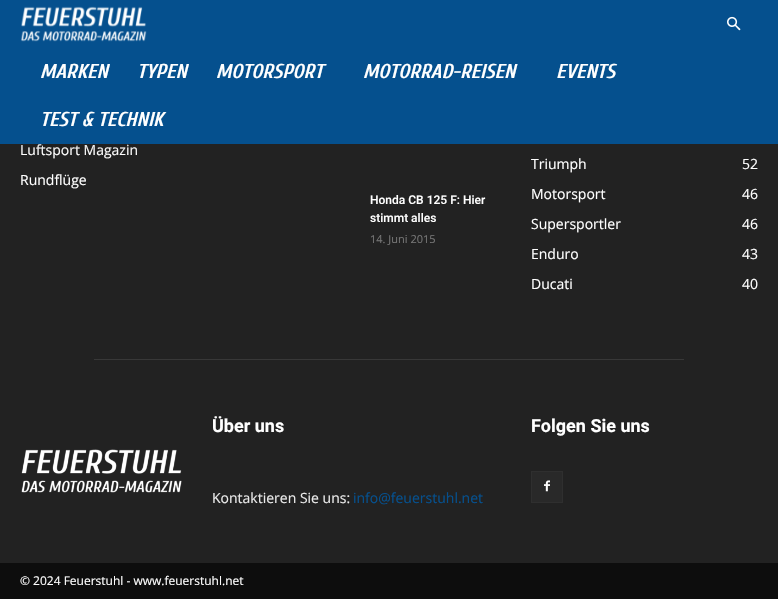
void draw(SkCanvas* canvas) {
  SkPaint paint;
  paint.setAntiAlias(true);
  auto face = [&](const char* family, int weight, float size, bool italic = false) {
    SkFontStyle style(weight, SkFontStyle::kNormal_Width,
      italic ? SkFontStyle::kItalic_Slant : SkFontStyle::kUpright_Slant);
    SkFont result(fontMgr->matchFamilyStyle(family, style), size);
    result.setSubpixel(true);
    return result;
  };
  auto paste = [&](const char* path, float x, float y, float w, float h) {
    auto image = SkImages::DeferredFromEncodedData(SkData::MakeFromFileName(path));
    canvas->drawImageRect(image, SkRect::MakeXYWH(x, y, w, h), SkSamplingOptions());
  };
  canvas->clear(0xff0d0d0d);
  paint.setColor(0xff05508e);
  canvas->drawRect(SkRect::MakeXYWH(0, 0, 778, 144), paint);
  paste("img/1.png", 727, 16, 14, 15);
  paste("img/2.png", 21, 6, 126, 36);
  {
    const struct { float x, y, w, h; SkColor color; } items[] = {
      {0, 144, 778, 419, 0xff222222},
      {94, 359, 590, 1, 0xff383838},
      {532, 472, 30, 30, 0xff292929},
    };
    for (auto [x, y, w, h, color] : items) {
      paint.setColor(color);
      canvas->drawRect(SkRect::MakeXYWH(x, y, w, h), paint);
    }
  }
  paste("img/4.png", 544, 480, 6, 12);
  paint.setStroke(true);
  paint.setStrokeWidth(1);
  paint.setColor(0xff2f2f2f);
  canvas->drawRect(SkRect::MakeXYWH(531.5f, 471.5f, 31, 31), paint);
  paste("img/5.png", 21, 449, 161, 44);
  auto f0 = face("Cuprum", 700, 20, true);
  paint.setStroke(false);
  paint.setColor(0xffffffff);
  {
    const struct { const char* s; float x, y; } items[] = {
      {"MARKEN", 40, 78},
      {"TYPEN", 137, 78},
      {"MOTORSPORT", 216, 78},
      {"MOTORRAD-REISEN", 363, 78},
      {"EVENTS", 556, 78},
      {"TEST & TECHNIK", 40, 126},
    };
    for (auto [s, x, y] : items) {
      canvas->drawString(s, x, y, f0, paint);
    }
  }
  auto f1 = face("Open Sans", 400, 14);
  canvas->drawString("Luftsport Magazin", 20, 155, f1, paint);
  paste("img/3.png", 21, 144, 116, 9);
  canvas->drawString("Rundflüge", 20, 185, f1, paint);
  auto f2 = face("Roboto", 500, 12);
  canvas->drawString("Honda CB 125 F: Hier", 370, 204, f2, paint);
  canvas->drawString("stimmt alles", 370, 222, f2, paint);
  auto f3 = face("Open Sans", 400, 11);
  paint.setColor(0xff767676);
  canvas->drawString("14. Juni 2015", 370, 243, f3, paint);
  paint.setColor(0xffffffff);
  {
    const struct { const char* s; float x, y; } items[] = {
      {"Triumph", 531, 169},
      {"52", 742, 169},
      {"Motorsport", 531, 199},
      {"46", 742, 199},
      {"Supersportler", 531, 229},
      {"46", 742, 229},
      {"Enduro", 531, 259},
      {"43", 742, 259},
      {"Ducati", 531, 289},
      {"40", 742, 289},
    };
    for (auto [s, x, y] : items) {
      canvas->drawString(s, x, y, f1, paint);
    }
  }
  auto f4 = face("Roboto", 700, 18);
  canvas->drawString("Über uns", 212, 432, f4, paint);
  paint.setColor(0xffeaeaea);
  canvas->drawString("Kontaktieren Sie uns:", 212, 503, f1, paint);
  paint.setColor(0xff05508e);
  canvas->drawString("info@feuerstuhl.net", 353, 503, f1, paint);
  paint.setColor(0xffffffff);
  canvas->drawString("Folgen Sie uns", 531, 432, f4, paint);
  auto f5 = face("Open Sans", 400, 12);
  canvas->drawString("© 2024 Feuerstuhl - www.feuerstuhl.net", 20, 585, f5, paint);
}
